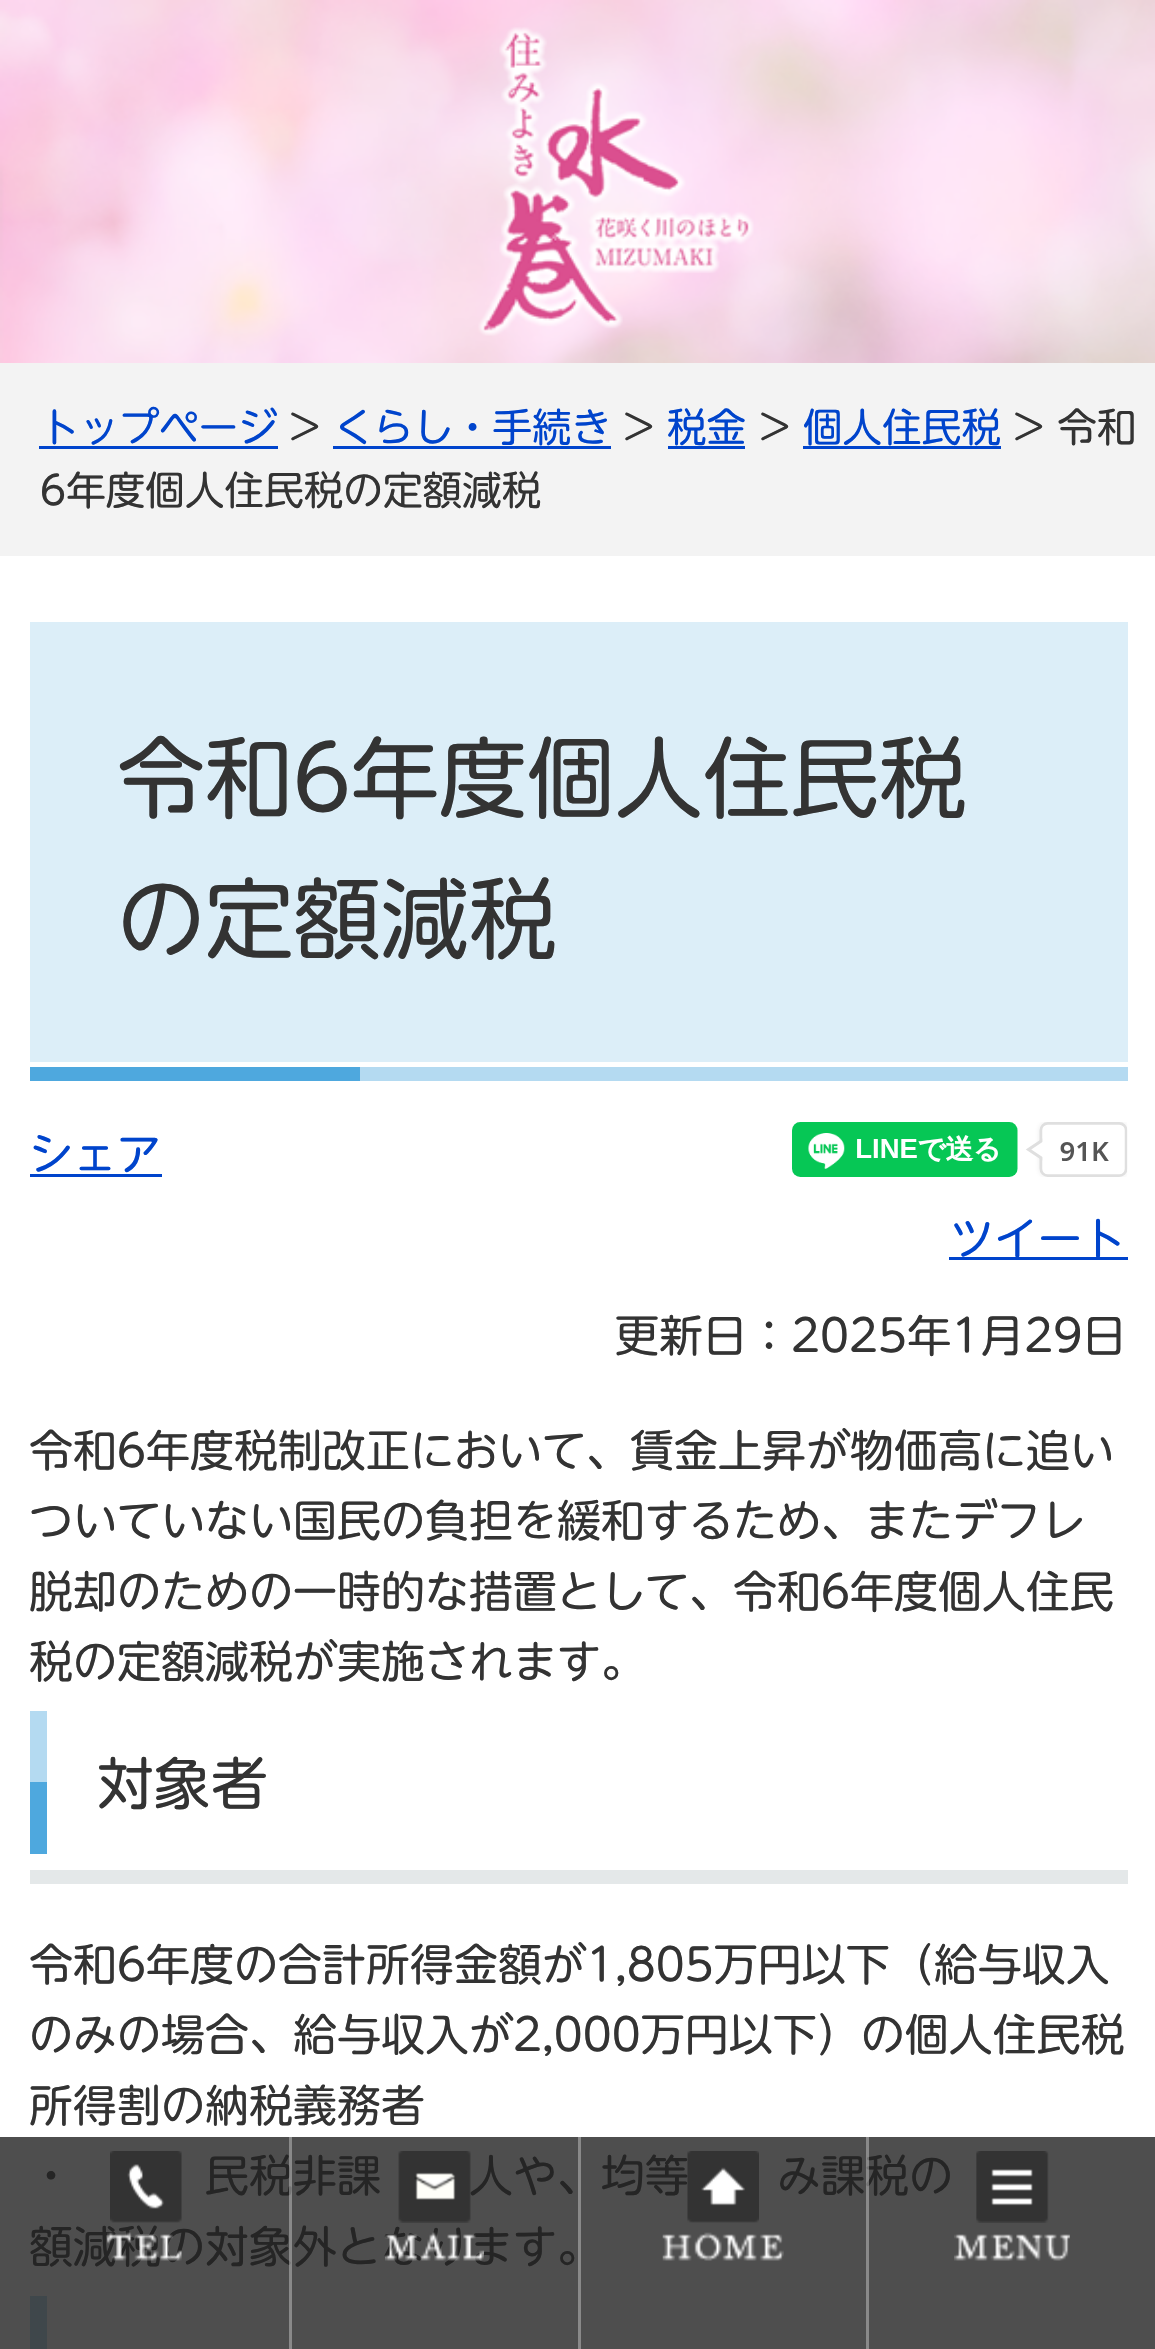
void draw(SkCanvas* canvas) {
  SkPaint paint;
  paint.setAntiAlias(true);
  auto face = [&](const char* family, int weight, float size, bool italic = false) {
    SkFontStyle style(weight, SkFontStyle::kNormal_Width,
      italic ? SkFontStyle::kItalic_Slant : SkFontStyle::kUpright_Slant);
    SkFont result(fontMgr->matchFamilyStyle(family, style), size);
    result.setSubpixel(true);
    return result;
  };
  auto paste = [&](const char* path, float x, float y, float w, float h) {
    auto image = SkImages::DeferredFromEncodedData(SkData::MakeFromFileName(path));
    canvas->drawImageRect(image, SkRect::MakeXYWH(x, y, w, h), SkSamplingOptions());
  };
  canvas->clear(0xffffffff);
  paint.setColor(0xff4e4e4e);
  canvas->drawRect(SkRect::MakeXYWH(0, 2137, 1155, 212), paint);
  paste("img/1.png", 0, 0, 1155, 363);
  paste("img/2.png", 478, 27, 276, 309);
  paste("img/3.png", 110, 2151, 72, 72);
  paste("img/8.png", 662, 2232, 122, 29);
  paste("img/9.png", 976, 2151, 73, 72);
  paste("img/10.png", 954, 2234, 116, 27);
  {
    const struct { float x, y, w, h; SkColor color; } items[] = {
      {0, 363, 1155, 193, 0xfff3f3f3},
      {39, 446, 239, 3, 0xff0044cc},
      {333, 446, 278, 3, 0xff0044cc},
      {668, 446, 77, 3, 0xff0044cc},
      {803, 446, 198, 3, 0xff0044cc},
      {30, 622, 1098, 440, 0xffdceef8},
      {30, 1067, 330, 14, 0xff4ea8de},
      {360, 1067, 768, 14, 0xffb4daf1},
      {30, 1174, 132, 3, 0xff0044cc},
    };
    for (auto [x, y, w, h, color] : items) {
      paint.setColor(color);
      canvas->drawRect(SkRect::MakeXYWH(x, y, w, h), paint);
    }
  }
  paste("img/11.png", 792, 1122, 336, 55);
  {
    const struct { float x, y, w, h; SkColor color; } items[] = {
      {949, 1257, 179, 3, 0xff0044cc},
      {30, 1870, 1098, 14, 0xffe4e8e9},
      {30, 1711, 17, 71, 0xffb4daf1},
      {30, 1782, 17, 72, 0xff4ea8de},
      {30, 2296, 17, 53, 0xff3f474b},
    };
    for (auto [x, y, w, h, color] : items) {
      paint.setColor(color);
      canvas->drawRect(SkRect::MakeXYWH(x, y, w, h), paint);
    }
  }
  auto f0 = face("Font", 400, 39.6f);
  paint.setColor(0xff0044cc);
  canvas->drawString("トップページ", 40, 442, f0, paint);
  paint.setColor(0xff333333);
  canvas->drawString(">", 290, 442, f0, paint);
  paint.setColor(0xff0044cc);
  canvas->drawString("くらし・手続き", 334, 442, f0, paint);
  paint.setColor(0xff333333);
  canvas->drawString(">", 624, 442, f0, paint);
  paint.setColor(0xff0044cc);
  canvas->drawString("税金", 667, 442, f0, paint);
  paint.setColor(0xff333333);
  canvas->drawString(">", 760, 442, f0, paint);
  paint.setColor(0xff0044cc);
  canvas->drawString("個人住民税", 803, 442, f0, paint);
  paint.setColor(0xff333333);
  canvas->drawString("> 令和", 1014, 442, f0, paint);
  canvas->drawString("6年度個人住民税の定額減税", 40, 505, f0, paint);
  auto f1 = face("Font", 400, 88);
  canvas->drawString("令和6年度個人住民税", 117, 811, f1, paint);
  canvas->drawString("の定額減税", 117, 952, f1, paint);
  auto f2 = face("Font", 400, 44);
  paint.setColor(0xff0044cc);
  canvas->drawString("シェア", 29, 1170, f2, paint);
  canvas->drawString("ツイート", 950, 1255, f2, paint);
  paint.setColor(0xff333333);
  {
    const struct { const char* s; float x, y; } items[] = {
      {"更新日：2025年1月29日", 615, 1352},
      {"令和6年度税制改正において、賃金上昇が物価高に追い", 29, 1467},
      {"ついていない国民の負担を緩和するため、またデフレ", 29, 1537},
      {"脱却のための一時的な措置として、令和6年度個人住民", 29, 1608},
      {"税の定額減税が実施されます。", 29, 1678},
    };
    for (auto [s, x, y] : items) {
      canvas->drawString(s, x, y, f2, paint);
    }
  }
  auto f3 = face("Font", 400, 57);
  canvas->drawString("対象者", 97, 1805, f3, paint);
  {
    const struct { const char* s; float x, y; } items[] = {
      {"令和6年度の合計所得金額が1,805万円以下（給与収入", 29, 1981},
      {"のみの場合、給与収入が2,000万円以下）の個人住民税", 29, 2051},
      {"所得割の納税義務者", 29, 2122},
    };
    for (auto [s, x, y] : items) {
      canvas->drawString(s, x, y, f2, paint);
    }
  }
  paint.setColor(0xff252525);
  {
    const struct { const char* s; float x, y; } items[] = {
      {"・", 29, 2192},
      {"民税非課", 205, 2192},
      {"人や、均等", 469, 2192},
    };
    for (auto [s, x, y] : items) {
      canvas->drawString(s, x, y, f2, paint);
    }
  }
  paste("img/7.png", 687, 2151, 72, 72);
  paint.setColor(0xff898989);
  canvas->drawRect(SkRect::MakeXYWH(578, 2137, 3, 212), paint);
  paste("img/5.png", 398, 2151, 73, 72);
  paint.setColor(0xff252525);
  canvas->drawString("み課税の", 777, 2192, f2, paint);
  paint.setColor(0x80c4c4c4);
  canvas->drawRect(SkRect::MakeXYWH(866, 2137, 3, 212), paint);
  paint.setColor(0xff252525);
  canvas->drawString("額減税の対象外となります。", 29, 2263, f2, paint);
  paste("img/6.png", 385, 2232, 99, 29);
  paint.setColor(0x80c4c4c4);
  canvas->drawRect(SkRect::MakeXYWH(289, 2137, 3, 212), paint);
  paste("img/4.png", 107, 2232, 75, 29);
}
